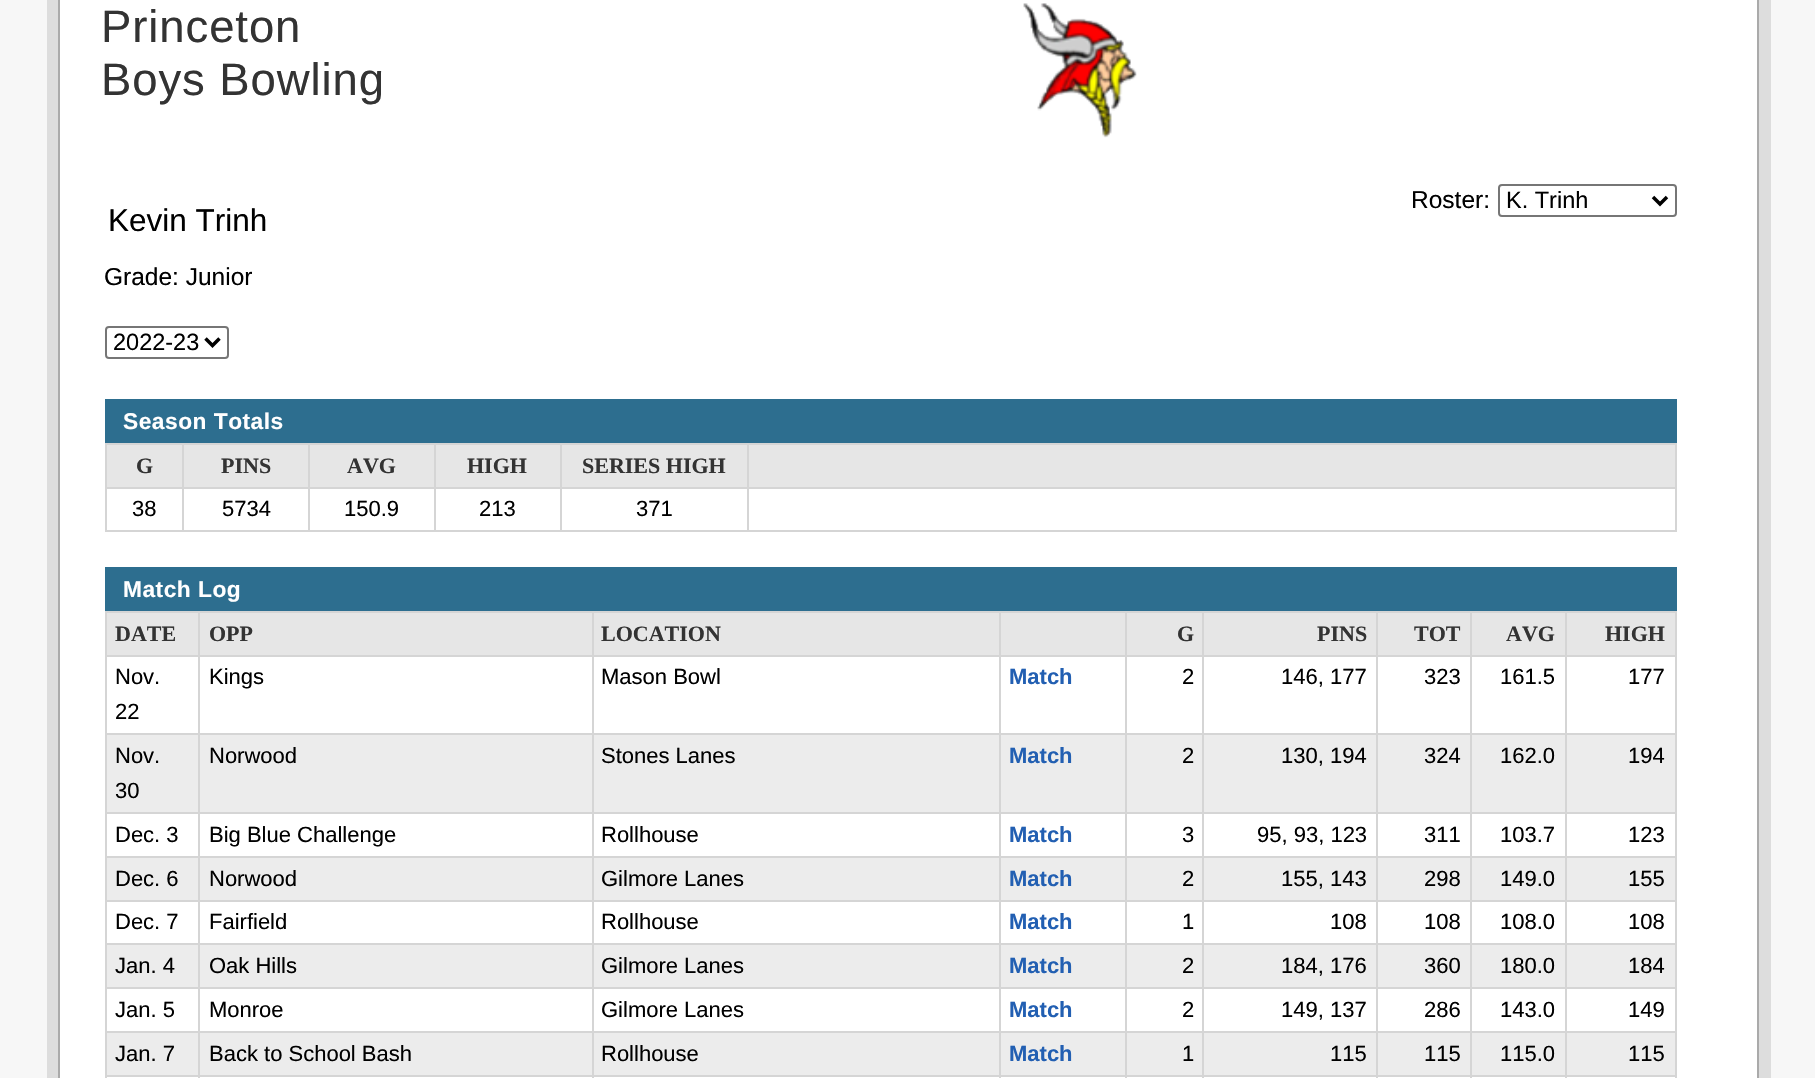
void draw(SkCanvas* canvas) {
  SkPaint paint;
  paint.setAntiAlias(true);
  auto face = [&](const char* family, int weight, float size, bool italic = false) {
    SkFontStyle style(weight, SkFontStyle::kNormal_Width,
      italic ? SkFontStyle::kItalic_Slant : SkFontStyle::kUpright_Slant);
    SkFont result(fontMgr->matchFamilyStyle(family, style), size);
    result.setSubpixel(true);
    return result;
  };
  auto writeSpaced = [&](const char* s, float x, float y, const SkFont& font, const SkPaint& ink, float letter, float word) {
    std::vector<SkGlyphID> glyphs(font.countText(s, strlen(s), SkTextEncoding::kUTF8));
    std::vector<float> xs(glyphs.size());
    font.textToGlyphs(s, strlen(s), SkTextEncoding::kUTF8, glyphs);
    font.getXPos(glyphs, xs, x);
    float extra = 0;
    for (size_t i = 0; i < glyphs.size(); i++) {
      xs[i] += extra;
      extra += letter + word * (glyphs[i] == font.unicharToGlyph(' '));
    }
    canvas->drawTextBlob(SkTextBlob::MakeFromPosHGlyphs(glyphs, xs, y, font), 0, 0, ink);
  };
  auto paste = [&](const char* path, float x, float y, float w, float h) {
    auto image = SkImages::DeferredFromEncodedData(SkData::MakeFromFileName(path));
    canvas->drawImageRect(image, SkRect::MakeXYWH(x, y, w, h), SkSamplingOptions());
  };
  auto shape = [&](const char* data, bool evenOdd = false) {
    SkPath result = *SkParsePath::FromSVGString(data);
    if (evenOdd) result.setFillType(SkPathFillType::kEvenOdd);
    return result;
  };
  canvas->clear(0xfff7f7f7);
  {
    const struct { float x, y, w, h; SkColor color; } items[] = {
      {47, 0, 1724, 1078, 0xffdddddd},
      {60, 0, 1697, 1078, 0xffffffff},
      {1757, 0, 2, 1078, 0xffaaaaaa},
      {58, 0, 2, 1078, 0xffaaaaaa},
    };
    for (auto [x, y, w, h, color] : items) {
      paint.setColor(color);
      canvas->drawRect(SkRect::MakeXYWH(x, y, w, h), paint);
    }
  }
  paste("img/1.png", 1023, 3, 114, 135);
  paint.setStroke(true);
  paint.setStrokeWidth(2);
  paint.setColor(0xff767676);
  canvas->drawRoundRect(SkRect::MakeXYWH(1499, 185, 177, 31), 3, 3, paint);
  paint.setStrokeWidth(3.5f);
  paint.setColor(0xff000000);
  canvas->drawPath(shape("M1653 197L1660 204L1667 197"), paint);
  paint.setStrokeWidth(2);
  paint.setColor(0xff767676);
  canvas->drawRoundRect(SkRect::MakeXYWH(106, 327, 122, 31), 3, 3, paint);
  paint.setStrokeWidth(3.5f);
  paint.setColor(0xff000000);
  canvas->drawPath(shape("M205.5 338.5L212.5 345.5L219.5 338.5"), paint);
  paint.setStroke(false);
  {
    const struct { float x, y, w, h; SkColor color; } items[] = {
      {105, 530, 1572, 2, 0xffd5d5d5},
      {105, 399, 1570, 44, 0xff2d6e8f},
      {1675, 399, 2, 46, 0xff2d6e8f},
      {107, 445, 75, 42, 0xffe6e6e6},
      {747, 443, 930, 2, 0xffd5d5d5},
      {747, 487, 930, 2, 0xffd5d5d5},
      {747, 487, 2, 45, 0xffd5d5d5},
      {560, 487, 189, 2, 0xffd5d5d5},
      {747, 443, 2, 45, 0xffd5d5d5},
      {560, 443, 189, 2, 0xffd5d5d5},
      {560, 487, 2, 45, 0xffd5d5d5},
      {434, 487, 128, 2, 0xffd5d5d5},
      {560, 443, 2, 45, 0xffd5d5d5},
      {434, 443, 128, 2, 0xffd5d5d5},
      {434, 487, 2, 45, 0xffd5d5d5},
      {308, 487, 128, 2, 0xffd5d5d5},
      {434, 443, 2, 45, 0xffd5d5d5},
      {308, 443, 128, 2, 0xffd5d5d5},
      {308, 487, 2, 45, 0xffd5d5d5},
      {182, 487, 128, 2, 0xffd5d5d5},
      {308, 443, 2, 45, 0xffd5d5d5},
      {182, 443, 128, 2, 0xffd5d5d5},
      {182, 487, 2, 45, 0xffd5d5d5},
      {105, 487, 79, 2, 0xffd5d5d5},
      {182, 443, 2, 45, 0xffd5d5d5},
      {105, 443, 79, 2, 0xffd5d5d5},
      {105, 487, 2, 45, 0xffd5d5d5},
      {105, 443, 2, 45, 0xffd5d5d5},
      {184, 445, 124, 42, 0xffe6e6e6},
      {310, 445, 124, 42, 0xffe6e6e6},
      {436, 445, 124, 42, 0xffe6e6e6},
      {562, 445, 185, 42, 0xffe6e6e6},
      {749, 445, 926, 42, 0xffe6e6e6},
      {1675, 487, 2, 45, 0xffd5d5d5},
      {1675, 443, 2, 45, 0xffd5d5d5},
      {105, 567, 1570, 44, 0xff2d6e8f},
      {1675, 567, 2, 46, 0xff2d6e8f},
      {107, 613, 91, 42, 0xffe6e6e6},
      {1565, 611, 112, 2, 0xffd5d5d5},
      {1565, 655, 112, 2, 0xffd5d5d5},
      {1565, 733, 112, 2, 0xffd5d5d5},
      {107, 735, 1568, 77, 0xffececec},
      {1565, 812, 112, 2, 0xffd5d5d5},
      {1565, 856, 112, 2, 0xffd5d5d5},
      {107, 858, 1568, 42, 0xffececec},
      {1565, 900, 112, 2, 0xffd5d5d5},
      {1565, 943, 112, 2, 0xffd5d5d5},
      {107, 945, 1568, 42, 0xffececec},
      {1565, 987, 112, 2, 0xffd5d5d5},
      {1565, 1031, 112, 2, 0xffd5d5d5},
      {107, 1033, 1568, 42, 0xffececec},
      {1565, 1075, 112, 2, 0xffd5d5d5},
      {1565, 1075, 2, 3, 0xffd5d5d5},
      {1470, 1075, 96, 2, 0xffd5d5d5},
      {1565, 1031, 2, 45, 0xffd5d5d5},
      {1470, 1031, 96, 2, 0xffd5d5d5},
      {1565, 987, 2, 46, 0xffd5d5d5},
      {1470, 987, 96, 2, 0xffd5d5d5},
      {1565, 943, 2, 46, 0xffd5d5d5},
      {1470, 943, 96, 2, 0xffd5d5d5},
      {1565, 900, 2, 45, 0xffd5d5d5},
      {1470, 900, 96, 2, 0xffd5d5d5},
      {1565, 856, 2, 45, 0xffd5d5d5},
      {1470, 856, 96, 2, 0xffd5d5d5},
      {1565, 812, 2, 46, 0xffd5d5d5},
      {1470, 812, 96, 2, 0xffd5d5d5},
      {1565, 733, 2, 81, 0xffd5d5d5},
      {1470, 733, 96, 2, 0xffd5d5d5},
      {1565, 655, 2, 80, 0xffd5d5d5},
      {1470, 655, 96, 2, 0xffd5d5d5},
      {1565, 611, 2, 45, 0xffd5d5d5},
      {1470, 611, 96, 2, 0xffd5d5d5},
      {1470, 1075, 2, 3, 0xffd5d5d5},
      {1376, 1075, 96, 2, 0xffd5d5d5},
      {1470, 1031, 2, 45, 0xffd5d5d5},
      {1376, 1031, 96, 2, 0xffd5d5d5},
      {1470, 987, 2, 46, 0xffd5d5d5},
      {1376, 987, 96, 2, 0xffd5d5d5},
      {1470, 943, 2, 46, 0xffd5d5d5},
      {1376, 943, 96, 2, 0xffd5d5d5},
      {1470, 900, 2, 45, 0xffd5d5d5},
      {1376, 900, 96, 2, 0xffd5d5d5},
      {1470, 856, 2, 45, 0xffd5d5d5},
      {1376, 856, 96, 2, 0xffd5d5d5},
      {1470, 812, 2, 46, 0xffd5d5d5},
      {1376, 812, 96, 2, 0xffd5d5d5},
      {1470, 733, 2, 81, 0xffd5d5d5},
      {1376, 733, 96, 2, 0xffd5d5d5},
      {1470, 655, 2, 80, 0xffd5d5d5},
      {1376, 655, 96, 2, 0xffd5d5d5},
      {1470, 611, 2, 45, 0xffd5d5d5},
      {1376, 611, 96, 2, 0xffd5d5d5},
      {1376, 1075, 2, 3, 0xffd5d5d5},
      {1202, 1075, 175, 2, 0xffd5d5d5},
      {1376, 1031, 2, 45, 0xffd5d5d5},
      {1202, 1031, 175, 2, 0xffd5d5d5},
      {1376, 987, 2, 46, 0xffd5d5d5},
      {1202, 987, 175, 2, 0xffd5d5d5},
      {1376, 943, 2, 46, 0xffd5d5d5},
      {1202, 943, 175, 2, 0xffd5d5d5},
      {1376, 900, 2, 45, 0xffd5d5d5},
      {1202, 900, 175, 2, 0xffd5d5d5},
      {1376, 856, 2, 45, 0xffd5d5d5},
      {1202, 856, 175, 2, 0xffd5d5d5},
      {1376, 812, 2, 46, 0xffd5d5d5},
      {1202, 812, 175, 2, 0xffd5d5d5},
      {1376, 733, 2, 81, 0xffd5d5d5},
      {1202, 733, 175, 2, 0xffd5d5d5},
      {1376, 655, 2, 80, 0xffd5d5d5},
      {1202, 655, 175, 2, 0xffd5d5d5},
      {1376, 611, 2, 45, 0xffd5d5d5},
      {1202, 611, 175, 2, 0xffd5d5d5},
      {1202, 1075, 2, 3, 0xffd5d5d5},
      {1125, 1075, 79, 2, 0xffd5d5d5},
      {1202, 1031, 2, 45, 0xffd5d5d5},
      {1125, 1031, 79, 2, 0xffd5d5d5},
      {1202, 987, 2, 46, 0xffd5d5d5},
      {1125, 987, 79, 2, 0xffd5d5d5},
      {1202, 943, 2, 46, 0xffd5d5d5},
      {1125, 943, 79, 2, 0xffd5d5d5},
      {1202, 900, 2, 45, 0xffd5d5d5},
      {1125, 900, 79, 2, 0xffd5d5d5},
      {1202, 856, 2, 45, 0xffd5d5d5},
      {1125, 856, 79, 2, 0xffd5d5d5},
      {1202, 812, 2, 46, 0xffd5d5d5},
      {1125, 812, 79, 2, 0xffd5d5d5},
      {1202, 733, 2, 81, 0xffd5d5d5},
      {1125, 733, 79, 2, 0xffd5d5d5},
      {1202, 655, 2, 80, 0xffd5d5d5},
      {1125, 655, 79, 2, 0xffd5d5d5},
      {1202, 611, 2, 45, 0xffd5d5d5},
      {1125, 611, 79, 2, 0xffd5d5d5},
      {1125, 1075, 2, 3, 0xffd5d5d5},
      {999, 1075, 128, 2, 0xffd5d5d5},
      {1125, 1031, 2, 45, 0xffd5d5d5},
      {999, 1031, 128, 2, 0xffd5d5d5},
      {1125, 987, 2, 46, 0xffd5d5d5},
      {999, 987, 128, 2, 0xffd5d5d5},
      {1125, 943, 2, 46, 0xffd5d5d5},
      {999, 943, 128, 2, 0xffd5d5d5},
      {1125, 900, 2, 45, 0xffd5d5d5},
      {999, 900, 128, 2, 0xffd5d5d5},
      {1125, 856, 2, 45, 0xffd5d5d5},
      {999, 856, 128, 2, 0xffd5d5d5},
      {1125, 812, 2, 46, 0xffd5d5d5},
      {999, 812, 128, 2, 0xffd5d5d5},
      {1125, 733, 2, 81, 0xffd5d5d5},
      {999, 733, 128, 2, 0xffd5d5d5},
      {1125, 655, 2, 80, 0xffd5d5d5},
      {999, 655, 128, 2, 0xffd5d5d5},
      {1125, 611, 2, 45, 0xffd5d5d5},
      {999, 611, 128, 2, 0xffd5d5d5},
      {999, 1075, 2, 3, 0xffd5d5d5},
      {592, 1075, 409, 2, 0xffd5d5d5},
      {999, 1031, 2, 45, 0xffd5d5d5},
      {592, 1031, 409, 2, 0xffd5d5d5},
      {999, 987, 2, 46, 0xffd5d5d5},
      {592, 987, 409, 2, 0xffd5d5d5},
      {999, 943, 2, 46, 0xffd5d5d5},
      {592, 943, 409, 2, 0xffd5d5d5},
      {999, 900, 2, 45, 0xffd5d5d5},
      {592, 900, 409, 2, 0xffd5d5d5},
      {999, 856, 2, 45, 0xffd5d5d5},
      {592, 856, 409, 2, 0xffd5d5d5},
      {999, 812, 2, 46, 0xffd5d5d5},
      {592, 812, 409, 2, 0xffd5d5d5},
      {999, 733, 2, 81, 0xffd5d5d5},
      {592, 733, 409, 2, 0xffd5d5d5},
      {999, 655, 2, 80, 0xffd5d5d5},
      {592, 655, 409, 2, 0xffd5d5d5},
      {999, 611, 2, 45, 0xffd5d5d5},
      {592, 611, 409, 2, 0xffd5d5d5},
      {592, 1075, 2, 3, 0xffd5d5d5},
      {198, 1075, 395, 2, 0xffd5d5d5},
      {592, 1031, 2, 45, 0xffd5d5d5},
      {198, 1031, 395, 2, 0xffd5d5d5},
      {592, 987, 2, 46, 0xffd5d5d5},
      {198, 987, 395, 2, 0xffd5d5d5},
      {592, 943, 2, 46, 0xffd5d5d5},
      {198, 943, 395, 2, 0xffd5d5d5},
      {592, 900, 2, 45, 0xffd5d5d5},
      {198, 900, 395, 2, 0xffd5d5d5},
      {592, 856, 2, 45, 0xffd5d5d5},
      {198, 856, 395, 2, 0xffd5d5d5},
      {592, 812, 2, 46, 0xffd5d5d5},
      {198, 812, 395, 2, 0xffd5d5d5},
      {592, 733, 2, 81, 0xffd5d5d5},
      {198, 733, 395, 2, 0xffd5d5d5},
      {592, 655, 2, 80, 0xffd5d5d5},
      {198, 655, 395, 2, 0xffd5d5d5},
      {592, 611, 2, 45, 0xffd5d5d5},
      {198, 611, 395, 2, 0xffd5d5d5},
      {198, 1075, 2, 3, 0xffd5d5d5},
      {105, 1075, 95, 2, 0xffd5d5d5},
      {198, 1031, 2, 45, 0xffd5d5d5},
      {105, 1031, 95, 2, 0xffd5d5d5},
      {198, 987, 2, 46, 0xffd5d5d5},
      {105, 987, 95, 2, 0xffd5d5d5},
      {198, 943, 2, 46, 0xffd5d5d5},
      {105, 943, 95, 2, 0xffd5d5d5},
      {198, 900, 2, 45, 0xffd5d5d5},
      {105, 900, 95, 2, 0xffd5d5d5},
      {198, 856, 2, 45, 0xffd5d5d5},
      {105, 856, 95, 2, 0xffd5d5d5},
      {198, 812, 2, 46, 0xffd5d5d5},
      {105, 812, 95, 2, 0xffd5d5d5},
      {198, 733, 2, 81, 0xffd5d5d5},
      {105, 733, 95, 2, 0xffd5d5d5},
      {198, 655, 2, 80, 0xffd5d5d5},
      {105, 655, 95, 2, 0xffd5d5d5},
      {198, 611, 2, 45, 0xffd5d5d5},
      {105, 611, 95, 2, 0xffd5d5d5},
      {105, 1075, 2, 3, 0xffd5d5d5},
      {105, 1031, 2, 45, 0xffd5d5d5},
      {105, 987, 2, 46, 0xffd5d5d5},
      {105, 943, 2, 46, 0xffd5d5d5},
      {105, 900, 2, 45, 0xffd5d5d5},
      {105, 856, 2, 45, 0xffd5d5d5},
      {105, 812, 2, 46, 0xffd5d5d5},
      {105, 733, 2, 81, 0xffd5d5d5},
      {105, 655, 2, 80, 0xffd5d5d5},
      {105, 611, 2, 45, 0xffd5d5d5},
      {200, 613, 392, 42, 0xffe6e6e6},
      {594, 613, 405, 42, 0xffe6e6e6},
      {1001, 613, 124, 42, 0xffe6e6e6},
      {1127, 613, 75, 42, 0xffe6e6e6},
      {1204, 613, 172, 42, 0xffe6e6e6},
      {1378, 613, 92, 42, 0xffe6e6e6},
      {1472, 613, 93, 42, 0xffe6e6e6},
      {1567, 613, 108, 42, 0xffe6e6e6},
      {1675, 1075, 2, 3, 0xffd5d5d5},
      {1675, 1031, 2, 45, 0xffd5d5d5},
      {1675, 987, 2, 46, 0xffd5d5d5},
      {1675, 943, 2, 46, 0xffd5d5d5},
      {1675, 900, 2, 45, 0xffd5d5d5},
      {1675, 856, 2, 45, 0xffd5d5d5},
      {1675, 812, 2, 46, 0xffd5d5d5},
      {1675, 733, 2, 81, 0xffd5d5d5},
      {1675, 655, 2, 80, 0xffd5d5d5},
      {1675, 611, 2, 45, 0xffd5d5d5},
    };
    for (auto [x, y, w, h, color] : items) {
      paint.setColor(color);
      canvas->drawRect(SkRect::MakeXYWH(x, y, w, h), paint);
    }
  }
  auto f0 = face("Liberation Sans", 400, 45.5f);
  paint.setColor(0xff333333);
  writeSpaced("Princeton", 101, 42, f0, paint, 0.9f, 0);
  writeSpaced("Boys Bowling", 101, 95, f0, paint, 0.9f, 0);
  auto f1 = face("Liberation Sans", 400, 24.5f);
  paint.setColor(0xff000000);
  canvas->drawString("Roster:", 1411, 208, f1, paint);
  auto f2 = face("Liberation Sans", 400, 23.5f);
  canvas->drawString("K. Trinh", 1506, 208, f2, paint);
  auto f3 = face("Liberation Sans", 400, 31.5f);
  canvas->drawString("Kevin Trinh", 108, 231, f3, paint);
  canvas->drawString("Grade: Junior", 104, 285, f1, paint);
  canvas->drawString("2022-23", 113, 350, f2, paint);
  auto f4 = face("Liberation Sans", 700, 22.75f);
  paint.setColor(0xffffffff);
  writeSpaced("Season Totals", 123, 429, f4, paint, 0.5f, 0);
  auto f5 = face("Liberation Serif", 700, 22);
  paint.setColor(0xff333333);
  {
    const struct { const char* s; float x, y; } items[] = {
      {"G", 136, 473},
      {"PINS", 221, 473},
      {"AVG", 347, 473},
      {"HIGH", 467, 473},
      {"SERIES HIGH", 582, 473},
    };
    for (auto [s, x, y] : items) {
      canvas->drawString(s, x, y, f5, paint);
    }
  }
  auto f6 = face("Liberation Sans", 400, 22);
  paint.setColor(0xff000000);
  {
    const struct { const char* s; float x, y; } items[] = {
      {"38", 132, 516},
      {"5734", 222, 516},
      {"150.9", 344, 516},
      {"213", 479, 516},
      {"371", 636, 516},
    };
    for (auto [s, x, y] : items) {
      canvas->drawString(s, x, y, f6, paint);
    }
  }
  paint.setColor(0xffffffff);
  writeSpaced("Match Log", 123, 597, f4, paint, 0.5f, 0);
  paint.setColor(0xff333333);
  {
    const struct { const char* s; float x, y; } items[] = {
      {"DATE", 115, 641},
      {"OPP", 209, 641},
      {"LOCATION", 601, 641},
      {"G", 1177, 641},
      {"PINS", 1317, 641},
      {"TOT", 1414, 641},
      {"AVG", 1506, 641},
      {"HIGH", 1605, 641},
    };
    for (auto [s, x, y] : items) {
      canvas->drawString(s, x, y, f5, paint);
    }
  }
  paint.setColor(0xff000000);
  {
    const struct { const char* s; float x, y; } items[] = {
      {"Nov.", 115, 684},
      {"22", 115, 719},
      {"Kings", 209, 684},
      {"Mason Bowl", 601, 684},
    };
    for (auto [s, x, y] : items) {
      canvas->drawString(s, x, y, f6, paint);
    }
  }
  auto f7 = face("Liberation Sans", 700, 22);
  paint.setColor(0xff225fb2);
  canvas->drawString("Match", 1009, 684, f7, paint);
  paint.setColor(0xff000000);
  {
    const struct { const char* s; float x, y; } items[] = {
      {"2", 1182, 684},
      {"146, 177", 1281, 684},
      {"323", 1424, 684},
      {"161.5", 1500, 684},
      {"177", 1628, 684},
      {"Nov.", 115, 763},
      {"30", 115, 798},
      {"Norwood", 209, 763},
      {"Stones Lanes", 601, 763},
    };
    for (auto [s, x, y] : items) {
      canvas->drawString(s, x, y, f6, paint);
    }
  }
  paint.setColor(0xff225fb2);
  canvas->drawString("Match", 1009, 763, f7, paint);
  paint.setColor(0xff000000);
  {
    const struct { const char* s; float x, y; } items[] = {
      {"2", 1182, 763},
      {"130, 194", 1281, 763},
      {"324", 1424, 763},
      {"162.0", 1500, 763},
      {"194", 1628, 763},
      {"Dec. 3", 115, 842},
      {"Big Blue Challenge", 209, 842},
      {"Rollhouse", 601, 842},
    };
    for (auto [s, x, y] : items) {
      canvas->drawString(s, x, y, f6, paint);
    }
  }
  paint.setColor(0xff225fb2);
  canvas->drawString("Match", 1009, 842, f7, paint);
  paint.setColor(0xff000000);
  {
    const struct { const char* s; float x, y; } items[] = {
      {"3", 1182, 842},
      {"95, 93, 123", 1257, 842},
      {"311", 1424, 842},
      {"103.7", 1500, 842},
      {"123", 1628, 842},
      {"Dec. 6", 115, 886},
      {"Norwood", 209, 886},
      {"Gilmore Lanes", 601, 886},
    };
    for (auto [s, x, y] : items) {
      canvas->drawString(s, x, y, f6, paint);
    }
  }
  paint.setColor(0xff225fb2);
  canvas->drawString("Match", 1009, 886, f7, paint);
  paint.setColor(0xff000000);
  {
    const struct { const char* s; float x, y; } items[] = {
      {"2", 1182, 886},
      {"155, 143", 1281, 886},
      {"298", 1424, 886},
      {"149.0", 1500, 886},
      {"155", 1628, 886},
      {"Dec. 7", 115, 929},
      {"Fairfield", 209, 929},
      {"Rollhouse", 601, 929},
    };
    for (auto [s, x, y] : items) {
      canvas->drawString(s, x, y, f6, paint);
    }
  }
  paint.setColor(0xff225fb2);
  canvas->drawString("Match", 1009, 929, f7, paint);
  paint.setColor(0xff000000);
  {
    const struct { const char* s; float x, y; } items[] = {
      {"1", 1182, 929},
      {"108", 1330, 929},
      {"108", 1424, 929},
      {"108.0", 1500, 929},
      {"108", 1628, 929},
      {"Jan. 4", 115, 973},
      {"Oak Hills", 209, 973},
      {"Gilmore Lanes", 601, 973},
    };
    for (auto [s, x, y] : items) {
      canvas->drawString(s, x, y, f6, paint);
    }
  }
  paint.setColor(0xff225fb2);
  canvas->drawString("Match", 1009, 973, f7, paint);
  paint.setColor(0xff000000);
  {
    const struct { const char* s; float x, y; } items[] = {
      {"2", 1182, 973},
      {"184, 176", 1281, 973},
      {"360", 1424, 973},
      {"180.0", 1500, 973},
      {"184", 1628, 973},
      {"Jan. 5", 115, 1017},
      {"Monroe", 209, 1017},
      {"Gilmore Lanes", 601, 1017},
    };
    for (auto [s, x, y] : items) {
      canvas->drawString(s, x, y, f6, paint);
    }
  }
  paint.setColor(0xff225fb2);
  canvas->drawString("Match", 1009, 1017, f7, paint);
  paint.setColor(0xff000000);
  {
    const struct { const char* s; float x, y; } items[] = {
      {"2", 1182, 1017},
      {"149, 137", 1281, 1017},
      {"286", 1424, 1017},
      {"143.0", 1500, 1017},
      {"149", 1628, 1017},
      {"Jan. 7", 115, 1061},
      {"Back to School Bash", 209, 1061},
      {"Rollhouse", 601, 1061},
    };
    for (auto [s, x, y] : items) {
      canvas->drawString(s, x, y, f6, paint);
    }
  }
  paint.setColor(0xff225fb2);
  canvas->drawString("Match", 1009, 1061, f7, paint);
  paint.setColor(0xff000000);
  {
    const struct { const char* s; float x, y; } items[] = {
      {"1", 1182, 1061},
      {"115", 1330, 1061},
      {"115", 1424, 1061},
      {"115.0", 1500, 1061},
      {"115", 1628, 1061},
    };
    for (auto [s, x, y] : items) {
      canvas->drawString(s, x, y, f6, paint);
    }
  }
}
